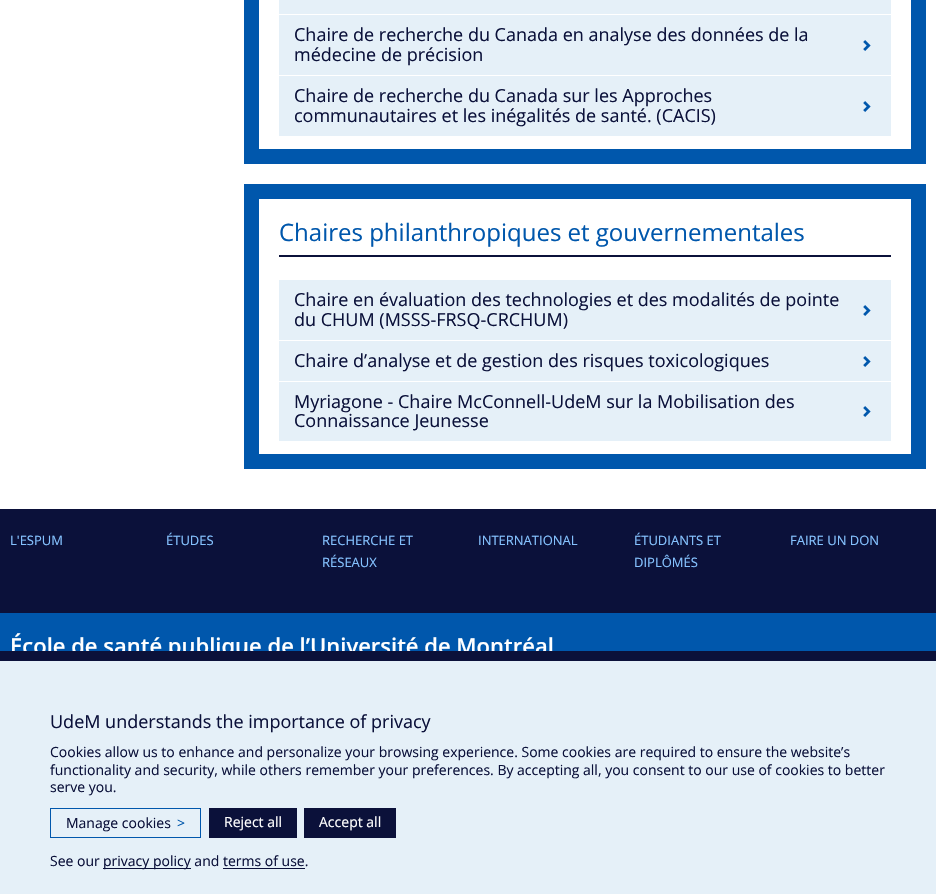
void draw(SkCanvas* canvas) {
  SkPaint paint;
  paint.setAntiAlias(true);
  auto face = [&](const char* family, int weight, float size, bool italic = false) {
    SkFontStyle style(weight, SkFontStyle::kNormal_Width,
      italic ? SkFontStyle::kItalic_Slant : SkFontStyle::kUpright_Slant);
    SkFont result(fontMgr->matchFamilyStyle(family, style), size);
    result.setSubpixel(true);
    return result;
  };
  auto paste = [&](const char* path, float x, float y, float w, float h) {
    auto image = SkImages::DeferredFromEncodedData(SkData::MakeFromFileName(path));
    canvas->drawImageRect(image, SkRect::MakeXYWH(x, y, w, h), SkSamplingOptions());
  };
  canvas->clear(0xffffffff);
  paint.setStroke(true);
  paint.setStrokeWidth(15);
  paint.setColor(0xff0057ac);
  canvas->drawRect(SkRect::MakeXYWH(251.5f, -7.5f, 667, 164), paint);
  paint.setStroke(false);
  paint.setColor(0xffe5f0f8);
  canvas->drawRect(SkRect::MakeXYWH(279, 0, 612, 14), paint);
  canvas->drawRect(SkRect::MakeXYWH(279, 15, 612, 60), paint);
  paste("img/1.png", 863, 40, 8, 11);
  canvas->drawRect(SkRect::MakeXYWH(279, 76, 612, 60), paint);
  paste("img/1.png", 863, 101, 8, 11);
  paint.setStroke(true);
  paint.setColor(0xff0057ac);
  canvas->drawRect(SkRect::MakeXYWH(251.5f, 191.5f, 667, 270), paint);
  paint.setStroke(false);
  paint.setColor(0xff0b113a);
  canvas->drawRect(SkRect::MakeXYWH(279, 255, 612, 2), paint);
  paint.setColor(0xffe5f0f8);
  canvas->drawRect(SkRect::MakeXYWH(279, 280, 612, 60), paint);
  paste("img/1.png", 863, 305, 8, 11);
  canvas->drawRect(SkRect::MakeXYWH(279, 341, 612, 40), paint);
  paste("img/1.png", 863, 356, 8, 11);
  canvas->drawRect(SkRect::MakeXYWH(279, 382, 612, 59), paint);
  paste("img/1.png", 863, 406, 8, 11);
  {
    const struct { float x, y, w, h; SkColor color; } items[] = {
      {0, 509, 936, 104, 0xff0b113a},
      {0, 613, 936, 38, 0xff0057ac},
      {0, 661, 936, 233, 0xffe5f0f8},
    };
    for (auto [x, y, w, h, color] : items) {
      paint.setColor(color);
      canvas->drawRect(SkRect::MakeXYWH(x, y, w, h), paint);
    }
  }
  paint.setStroke(true);
  paint.setStrokeWidth(1);
  paint.setColor(0xff0057ac);
  canvas->drawRect(SkRect::MakeXYWH(50.5f, 808.5f, 150, 29), paint);
  paint.setStroke(false);
  {
    const struct { float x, y, w, h; SkColor color; } items[] = {
      {209, 808, 88, 30, 0xff0b113a},
      {304, 808, 92, 30, 0xff0b113a},
      {103, 868, 88, 1, 0xff0b113a},
      {223, 868, 82, 1, 0xff0b113a},
    };
    for (auto [x, y, w, h, color] : items) {
      paint.setColor(color);
      canvas->drawRect(SkRect::MakeXYWH(x, y, w, h), paint);
    }
  }
  auto f0 = face("Open Sans", 400, 18);
  {
    const struct { const char* s; float x, y; } items[] = {
      {"Chaire de recherche du Canada en analyse des données de la", 294, 41},
      {"médecine de précision", 294, 61},
      {"Chaire de recherche du Canada sur les Approches", 294, 102},
      {"communautaires et les inégalités de santé. (CACIS)", 294, 122},
    };
    for (auto [s, x, y] : items) {
      canvas->drawString(s, x, y, f0, paint);
    }
  }
  auto f1 = face("Open Sans", 400, 24);
  paint.setColor(0xff0057ac);
  canvas->drawString("Chaires philanthropiques et gouvernementales", 279, 241, f1, paint);
  paint.setColor(0xff0b113a);
  {
    const struct { const char* s; float x, y; } items[] = {
      {"Chaire en évaluation des technologies et des modalités de pointe", 294, 306},
      {"du CHUM (MSSS-FRSQ-CRCHUM)", 294, 326},
      {"Chaire d’analyse et de gestion des risques toxicologiques", 294, 367},
      {"Myriagone - Chaire McConnell-UdeM sur la Mobilisation des", 294, 408},
      {"Connaissance Jeunesse", 294, 427},
    };
    for (auto [s, x, y] : items) {
      canvas->drawString(s, x, y, f0, paint);
    }
  }
  auto f2 = face("Open Sans", 400, 13);
  paint.setColor(0xff85c2ff);
  {
    const struct { const char* s; float x, y; } items[] = {
      {"L'ESPUM", 10, 545},
      {"ÉTUDES", 166, 545},
      {"RECHERCHE ET", 322, 545},
      {"RÉSEAUX", 322, 567},
      {"INTERNATIONAL", 478, 545},
      {"ÉTUDIANTS ET", 634, 545},
      {"DIPLÔMÉS", 634, 567},
      {"FAIRE UN DON", 790, 545},
    };
    for (auto [s, x, y] : items) {
      canvas->drawString(s, x, y, f2, paint);
    }
  }
  auto f3 = face("Open Sans", 600, 22);
  paint.setColor(0xffffffff);
  canvas->drawString("École de santé publique de l’Université de Montréal", 10, 654, f3, paint);
  paint.setColor(0xff0b113a);
  canvas->drawRect(SkRect::MakeXYWH(0, 651, 936, 10), paint);
  canvas->drawString("UdeM understands the importance of privacy", 50, 728, f0, paint);
  auto f4 = face("Open Sans", 400, 14);
  {
    const struct { const char* s; float x, y; } items[] = {
      {"Cookies allow us to enhance and personalize your browsing experience. Some cookies are required to ensure the website’s", 50, 757},
      {"functionality and security, while others remember your preferences. By accepting all, you consent to our use of cookies to better", 50, 775},
      {"serve you.", 50, 792},
      {"Manage cookies", 66, 828},
    };
    for (auto [s, x, y] : items) {
      canvas->drawString(s, x, y, f4, paint);
    }
  }
  paint.setColor(0xff0057ac);
  canvas->drawString(">", 177, 828, f4, paint);
  paint.setColor(0xffffffff);
  canvas->drawString("Reject all", 224, 827, f4, paint);
  canvas->drawString("Accept all", 319, 827, f4, paint);
  paint.setColor(0xff0b113a);
  canvas->drawString("See our", 50, 866, f4, paint);
  canvas->drawString("privacy policy and terms of use.", 103, 866, f4, paint);
}
